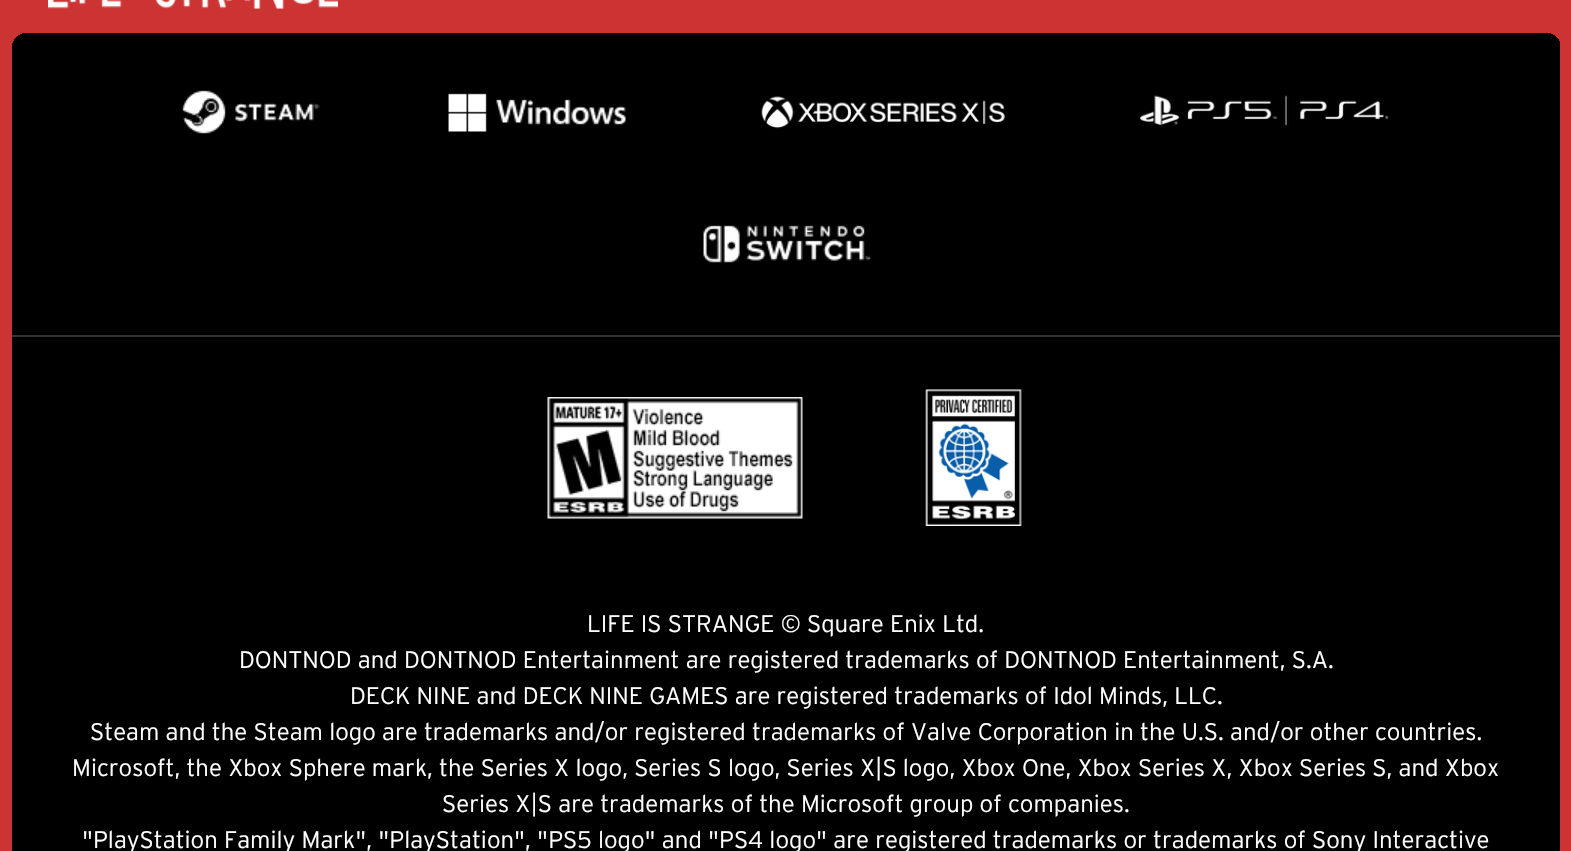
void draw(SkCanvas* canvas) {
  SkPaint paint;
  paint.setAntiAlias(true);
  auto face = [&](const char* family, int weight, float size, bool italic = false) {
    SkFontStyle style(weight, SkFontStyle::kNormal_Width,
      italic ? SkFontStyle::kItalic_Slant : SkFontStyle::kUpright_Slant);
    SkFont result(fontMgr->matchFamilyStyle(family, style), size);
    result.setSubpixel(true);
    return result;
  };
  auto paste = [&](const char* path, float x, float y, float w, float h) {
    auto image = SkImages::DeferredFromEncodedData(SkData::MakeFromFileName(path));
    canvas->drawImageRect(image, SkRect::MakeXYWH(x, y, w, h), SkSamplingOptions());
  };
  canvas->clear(0xffcc3333);
  paste("img/1.png", 48, 0, 290, 9);
  paint.setColor(0xff000000);
  canvas->drawRect(SkRect::MakeXYWH(12, 33, 1548, 818), paint);
  {
    const SkColor colors[] = {0xff000000, 0xffcc3333};
    const float stops[] = {1, 1};
    paint.setShader(SkGradientShader::MakeRadial({26, 47}, 14, colors, stops, 2, SkTileMode::kClamp));
    paint.setAlpha(255);
  }
  canvas->drawRect(SkRect::MakeXYWH(12, 33, 10, 10), paint);
  {
    const SkColor colors[] = {0xff000000, 0xffcc3333};
    const float stops[] = {1, 1};
    paint.setShader(SkGradientShader::MakeRadial({1547, 47}, 14, colors, stops, 2, SkTileMode::kClamp));
    paint.setAlpha(255);
  }
  canvas->drawRect(SkRect::MakeXYWH(1551, 33, 9, 8), paint);
  paste("img/2.png", 182, 90, 138, 44);
  paste("img/3.png", 448, 93, 178, 39);
  paste("img/4.png", 761, 96, 244, 33);
  paste("img/5.png", 1140, 95, 249, 31);
  paste("img/6.png", 703, 225, 168, 38);
  paint.setShader(nullptr);
  paint.setColor(0xff333333);
  canvas->drawRect(SkRect::MakeXYWH(12, 335, 1548, 2), paint);
  paste("img/7.png", 547, 397, 256, 122);
  paste("img/8.png", 925, 389, 97, 137);
  auto f0 = face("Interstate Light", 300, 24);
  paint.setColor(0xffffffff);
  {
    const struct { const char* s; float x, y; } items[] = {
      {"LIFE IS STRANGE © Square Enix Ltd.", 587, 632},
      {"DONTNOD and DONTNOD Entertainment are registered trademarks of DONTNOD Entertainment, S.A.", 239, 668},
      {"DECK NINE and DECK NINE GAMES are registered trademarks of Idol Minds, LLC.", 350, 704},
      {"Steam and the Steam logo are trademarks and/or registered trademarks of Valve Corporation in the U.S. and/or other countries.", 90, 740},
      {"Microsoft, the Xbox Sphere mark, the Series X logo, Series S logo, Series X|S logo, Xbox One, Xbox Series X, Xbox Series S, and Xbox", 72, 776},
      {"Series X|S are trademarks of the Microsoft group of companies.", 442, 812},
      {"\"PlayStation Family Mark\", \"PlayStation\", \"PS5 logo\" and \"PS4 logo\" are registered trademarks or trademarks of Sony Interactive", 82, 848},
    };
    for (auto [s, x, y] : items) {
      canvas->drawString(s, x, y, f0, paint);
    }
  }
}
